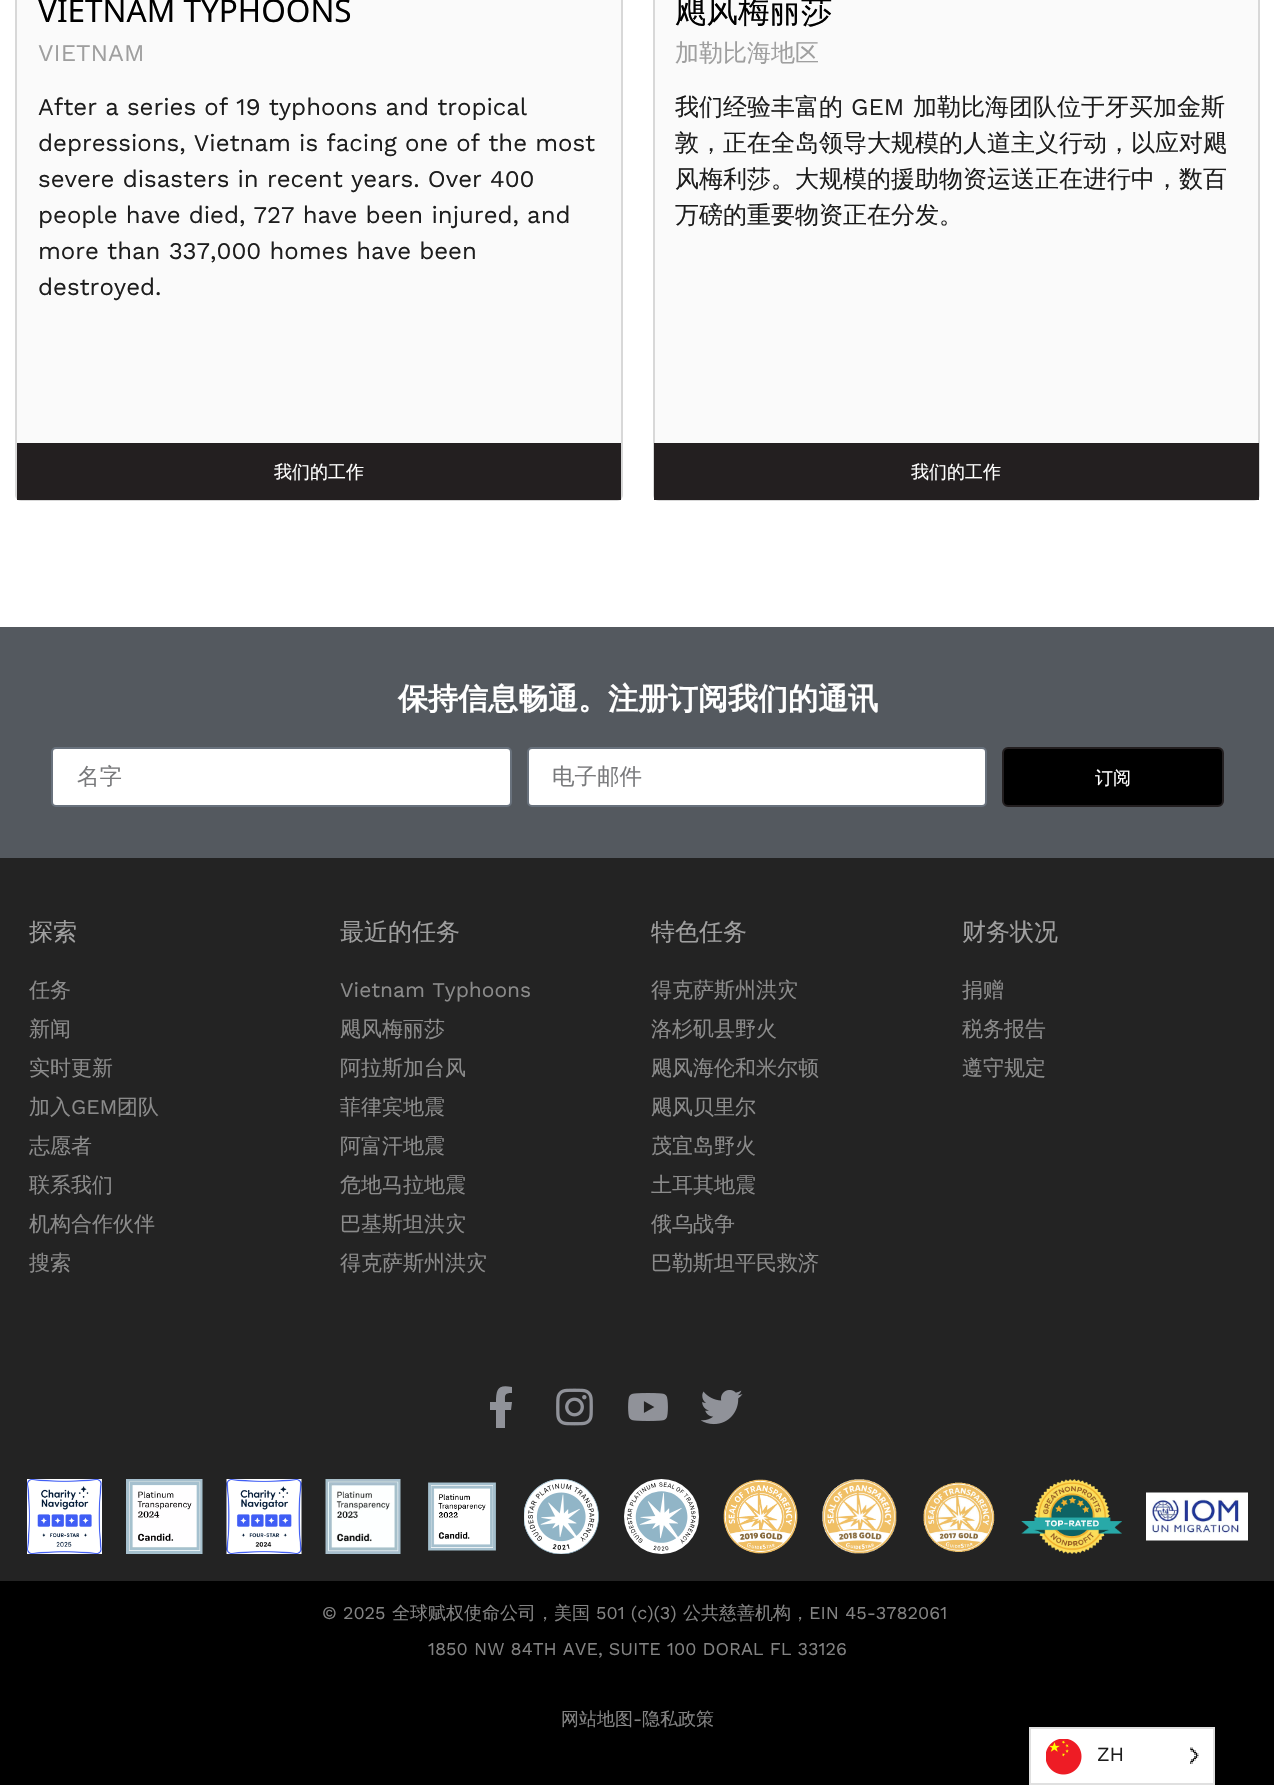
void draw(SkCanvas* canvas) {
  SkPaint paint;
  paint.setAntiAlias(true);
  auto face = [&](const char* family, int weight, float size, bool italic = false) {
    SkFontStyle style(weight, SkFontStyle::kNormal_Width,
      italic ? SkFontStyle::kItalic_Slant : SkFontStyle::kUpright_Slant);
    SkFont result(fontMgr->matchFamilyStyle(family, style), size);
    result.setSubpixel(true);
    return result;
  };
  auto paste = [&](const char* path, float x, float y, float w, float h) {
    auto image = SkImages::DeferredFromEncodedData(SkData::MakeFromFileName(path));
    canvas->drawImageRect(image, SkRect::MakeXYWH(x, y, w, h), SkSamplingOptions());
  };
  auto shape = [&](const char* data, bool evenOdd = false) {
    SkPath result = *SkParsePath::FromSVGString(data);
    if (evenOdd) result.setFillType(SkPathFillType::kEvenOdd);
    return result;
  };
  canvas->clear(0xffffffff);
  paint.setColor(0xfffafafa);
  canvas->drawRoundRect(SkRect::MakeXYWH(16, -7, 606, 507), 5, 5, paint);
  paint.setStroke(true);
  paint.setStrokeWidth(2);
  paint.setColor(0xffd8d8d8);
  canvas->drawRoundRect(SkRect::MakeXYWH(16, -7, 606, 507), 5, 5, paint);
  paint.setStroke(false);
  paint.setColor(0xff231f20);
  canvas->drawRect(SkRect::MakeXYWH(17, 443, 604, 57), paint);
  paint.setColor(0xfffafafa);
  canvas->drawRoundRect(SkRect::MakeXYWH(654, -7, 605, 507), 5, 5, paint);
  paint.setStroke(true);
  paint.setColor(0xffd8d8d8);
  canvas->drawRoundRect(SkRect::MakeXYWH(654, -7, 605, 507), 5, 5, paint);
  paint.setStroke(false);
  paint.setColor(0xff231f20);
  canvas->drawRect(SkRect::MakeXYWH(654, 443, 605, 57), paint);
  paint.setColor(0xff54595f);
  canvas->drawRect(SkRect::MakeXYWH(0, 627, 1274, 231), paint);
  paint.setColor(0xffffffff);
  canvas->drawRoundRect(SkRect::MakeXYWH(52, 748, 459, 58), 4, 4, paint);
  paint.setStroke(true);
  paint.setColor(0xff69727d);
  canvas->drawRoundRect(SkRect::MakeXYWH(52, 748, 459, 58), 4, 4, paint);
  paint.setStroke(false);
  paint.setColor(0xffffffff);
  canvas->drawRoundRect(SkRect::MakeXYWH(528, 748, 458, 58), 4, 4, paint);
  paint.setStroke(true);
  paint.setColor(0xff69727d);
  canvas->drawRoundRect(SkRect::MakeXYWH(528, 748, 458, 58), 4, 4, paint);
  paint.setStroke(false);
  paint.setColor(0xff000000);
  canvas->drawRoundRect(SkRect::MakeXYWH(1003, 748, 220, 58), 5, 5, paint);
  paint.setStroke(true);
  paint.setColor(0xff231f20);
  canvas->drawRoundRect(SkRect::MakeXYWH(1003, 748, 220, 58), 5, 5, paint);
  paint.setStroke(false);
  paint.setColor(0xff232323);
  canvas->drawRect(SkRect::MakeXYWH(0, 858, 1274, 723), paint);
  paint.setColor(0xff909299);
  canvas->drawPath(shape("M511 1410L512 1402H505C505 1395 504 1393 512 1393V1387C498 1384 496 1389 496 1402H490V1410H496V1428H505V1410Z"), paint);
  paste("img/1.png", 556, 1388, 37, 38);
  paste("img/2.png", 628, 1393, 40, 28);
  paste("img/3.png", 701, 1390, 42, 35);
  paste("img/4.png", 27, 1479, 75, 75);
  paste("img/5.png", 126, 1479, 77, 75);
  paste("img/6.png", 226, 1479, 76, 75);
  paste("img/7.png", 325, 1479, 76, 75);
  paste("img/8.png", 428, 1482, 68, 69);
  paste("img/9.png", 524, 1479, 75, 75);
  paste("img/10.png", 624, 1479, 75, 75);
  paste("img/11.png", 723, 1479, 75, 75);
  paste("img/12.png", 822, 1479, 75, 75);
  paste("img/13.png", 923, 1482, 72, 70);
  paste("img/14.png", 1021, 1479, 101, 75);
  paste("img/15.png", 1146, 1492, 102, 49);
  paint.setColor(0xff000000);
  canvas->drawRect(SkRect::MakeXYWH(0, 1581, 1274, 204), paint);
  paint.setColor(0xffffffff);
  canvas->drawRect(SkRect::MakeXYWH(1030, 1728, 184, 56), paint);
  paint.setStroke(true);
  paint.setColor(0xffe0e0e0);
  canvas->drawRect(SkRect::MakeXYWH(1030, 1728, 184, 56), paint);
  paste("img/16.png", 1046, 1739, 36, 36);
  paste("img/17.png", 1190, 1747, 9, 17);
  auto f0 = face("Noto Sans", 400, 31.5f);
  paint.setStroke(false);
  paint.setColor(0xff000000);
  canvas->drawString("VIETNAM TYPHOONS", 38, 22, f0, paint);
  auto f1 = face("Work Sans", 400, 24);
  paint.setColor(0xff9f9f9f);
  canvas->drawString("VIETNAM", 38, 61, f1, paint);
  paint.setColor(0xff1d1d1d);
  {
    const struct { const char* s; float x, y; } items[] = {
      {"After a series of 19 typhoons and tropical", 38, 115},
      {"depressions, Vietnam is facing one of the most", 38, 151},
      {"severe disasters in recent years. Over 400", 38, 187},
      {"people have died, 727 have been injured, and", 38, 223},
      {"more than 337,000 homes have been", 38, 259},
      {"destroyed.", 38, 295},
    };
    for (auto [s, x, y] : items) {
      canvas->drawString(s, x, y, f1, paint);
    }
  }
  auto f2 = face("WenQuanYi Zen Hei", 500, 18);
  paint.setColor(0xffffffff);
  canvas->drawString("我们的工作", 274, 478, f2, paint);
  auto f3 = face("WenQuanYi Zen Hei", 500, 31.5f);
  paint.setColor(0xff000000);
  canvas->drawString("飓风梅丽莎", 675, 22, f3, paint);
  auto f4 = face("WenQuanYi Zen Hei", 500, 24);
  paint.setColor(0xff9f9f9f);
  canvas->drawString("加勒比海地区", 675, 61, f4, paint);
  paint.setColor(0xff1d1d1d);
  canvas->drawString("我们经验丰富的", 675, 115, f4, paint);
  canvas->drawString("GEM", 851, 115, f1, paint);
  {
    const struct { const char* s; float x, y; } items[] = {
      {"加勒比海团队位于牙买加金斯", 913, 115},
      {"敦，正在全岛领导大规模的人道主义行动，以应对飓", 675, 151},
      {"风梅利莎。大规模的援助物资运送正在进行中，数百", 675, 187},
      {"万磅的重要物资正在分发。", 675, 223},
    };
    for (auto [s, x, y] : items) {
      canvas->drawString(s, x, y, f4, paint);
    }
  }
  paint.setColor(0xffffffff);
  canvas->drawString("我们的工作", 911, 478, f2, paint);
  auto f5 = face("WenQuanYi Zen Hei", 700, 30);
  canvas->drawString("保持信息畅通。注册订阅我们的通讯", 398, 709, f5, paint);
  auto f6 = face("WenQuanYi Zen Hei", 500, 22.5f);
  paint.setColor(0xff797a7c);
  canvas->drawString("名字", 77, 784, f6, paint);
  canvas->drawString("电子邮件", 552, 784, f6, paint);
  paint.setColor(0xffffffff);
  canvas->drawString("订阅", 1095, 784, f2, paint);
  paint.setColor(0xff9f9f9f);
  canvas->drawString("探索", 29, 940, f4, paint);
  auto f7 = face("WenQuanYi Zen Hei", 500, 21);
  paint.setColor(0xff8b8b8b);
  {
    const struct { const char* s; float x, y; } items[] = {
      {"任务", 29, 997},
      {"新闻", 29, 1036},
      {"实时更新", 29, 1075},
      {"加入", 29, 1114},
    };
    for (auto [s, x, y] : items) {
      canvas->drawString(s, x, y, f7, paint);
    }
  }
  auto f8 = face("Work Sans", 400, 21);
  canvas->drawString("GEM", 71, 1114, f8, paint);
  {
    const struct { const char* s; float x, y; } items[] = {
      {"团队", 117, 1114},
      {"志愿者", 29, 1153},
      {"联系我们", 29, 1192},
      {"机构合作伙伴", 29, 1231},
      {"搜索", 29, 1270},
    };
    for (auto [s, x, y] : items) {
      canvas->drawString(s, x, y, f7, paint);
    }
  }
  paint.setColor(0xff9f9f9f);
  canvas->drawString("最近的任务", 340, 940, f4, paint);
  paint.setColor(0xff8b8b8b);
  canvas->drawString("Vietnam Typhoons", 340, 997, f8, paint);
  {
    const struct { const char* s; float x, y; } items[] = {
      {"飓风梅丽莎", 340, 1036},
      {"阿拉斯加台风", 340, 1075},
      {"菲律宾地震", 340, 1114},
      {"阿富汗地震", 340, 1153},
      {"危地马拉地震", 340, 1192},
      {"巴基斯坦洪灾", 340, 1231},
      {"得克萨斯州洪灾", 340, 1270},
    };
    for (auto [s, x, y] : items) {
      canvas->drawString(s, x, y, f7, paint);
    }
  }
  paint.setColor(0xff9f9f9f);
  canvas->drawString("特色任务", 651, 940, f4, paint);
  paint.setColor(0xff8b8b8b);
  {
    const struct { const char* s; float x, y; } items[] = {
      {"得克萨斯州洪灾", 651, 997},
      {"洛杉矶县野火", 651, 1036},
      {"飓风海伦和米尔顿", 651, 1075},
      {"飓风贝里尔", 651, 1114},
      {"茂宜岛野火", 651, 1153},
      {"土耳其地震", 651, 1192},
      {"俄乌战争", 651, 1231},
      {"巴勒斯坦平民救济", 651, 1270},
    };
    for (auto [s, x, y] : items) {
      canvas->drawString(s, x, y, f7, paint);
    }
  }
  paint.setColor(0xff9f9f9f);
  canvas->drawString("财务状况", 962, 940, f4, paint);
  paint.setColor(0xff8b8b8b);
  {
    const struct { const char* s; float x, y; } items[] = {
      {"捐赠", 962, 997},
      {"税务报告", 962, 1036},
      {"遵守规定", 962, 1075},
    };
    for (auto [s, x, y] : items) {
      canvas->drawString(s, x, y, f7, paint);
    }
  }
  auto f9 = face("Work Sans", 400, 18);
  paint.setColor(0xff838383);
  canvas->drawString("© 2025", 322, 1619, f9, paint);
  canvas->drawString("全球赋权使命公司，美国", 392, 1619, f2, paint);
  canvas->drawString("501 (c)(3)", 596, 1619, f9, paint);
  canvas->drawString("公共慈善机构，", 683, 1619, f2, paint);
  canvas->drawString("EIN 45-3782061", 809, 1619, f9, paint);
  canvas->drawString("1850 NW 84TH AVE, SUITE 100 DORAL FL 33126", 428, 1655, f9, paint);
  canvas->drawString("网站地图", 561, 1725, f2, paint);
  canvas->drawString("-", 633, 1725, f9, paint);
  canvas->drawString("隐私政策", 642, 1725, f2, paint);
  auto f10 = face("Work Sans", 400, 20);
  paint.setColor(0xff1d1d1d);
  canvas->drawString("ZH", 1097, 1761, f10, paint);
}
